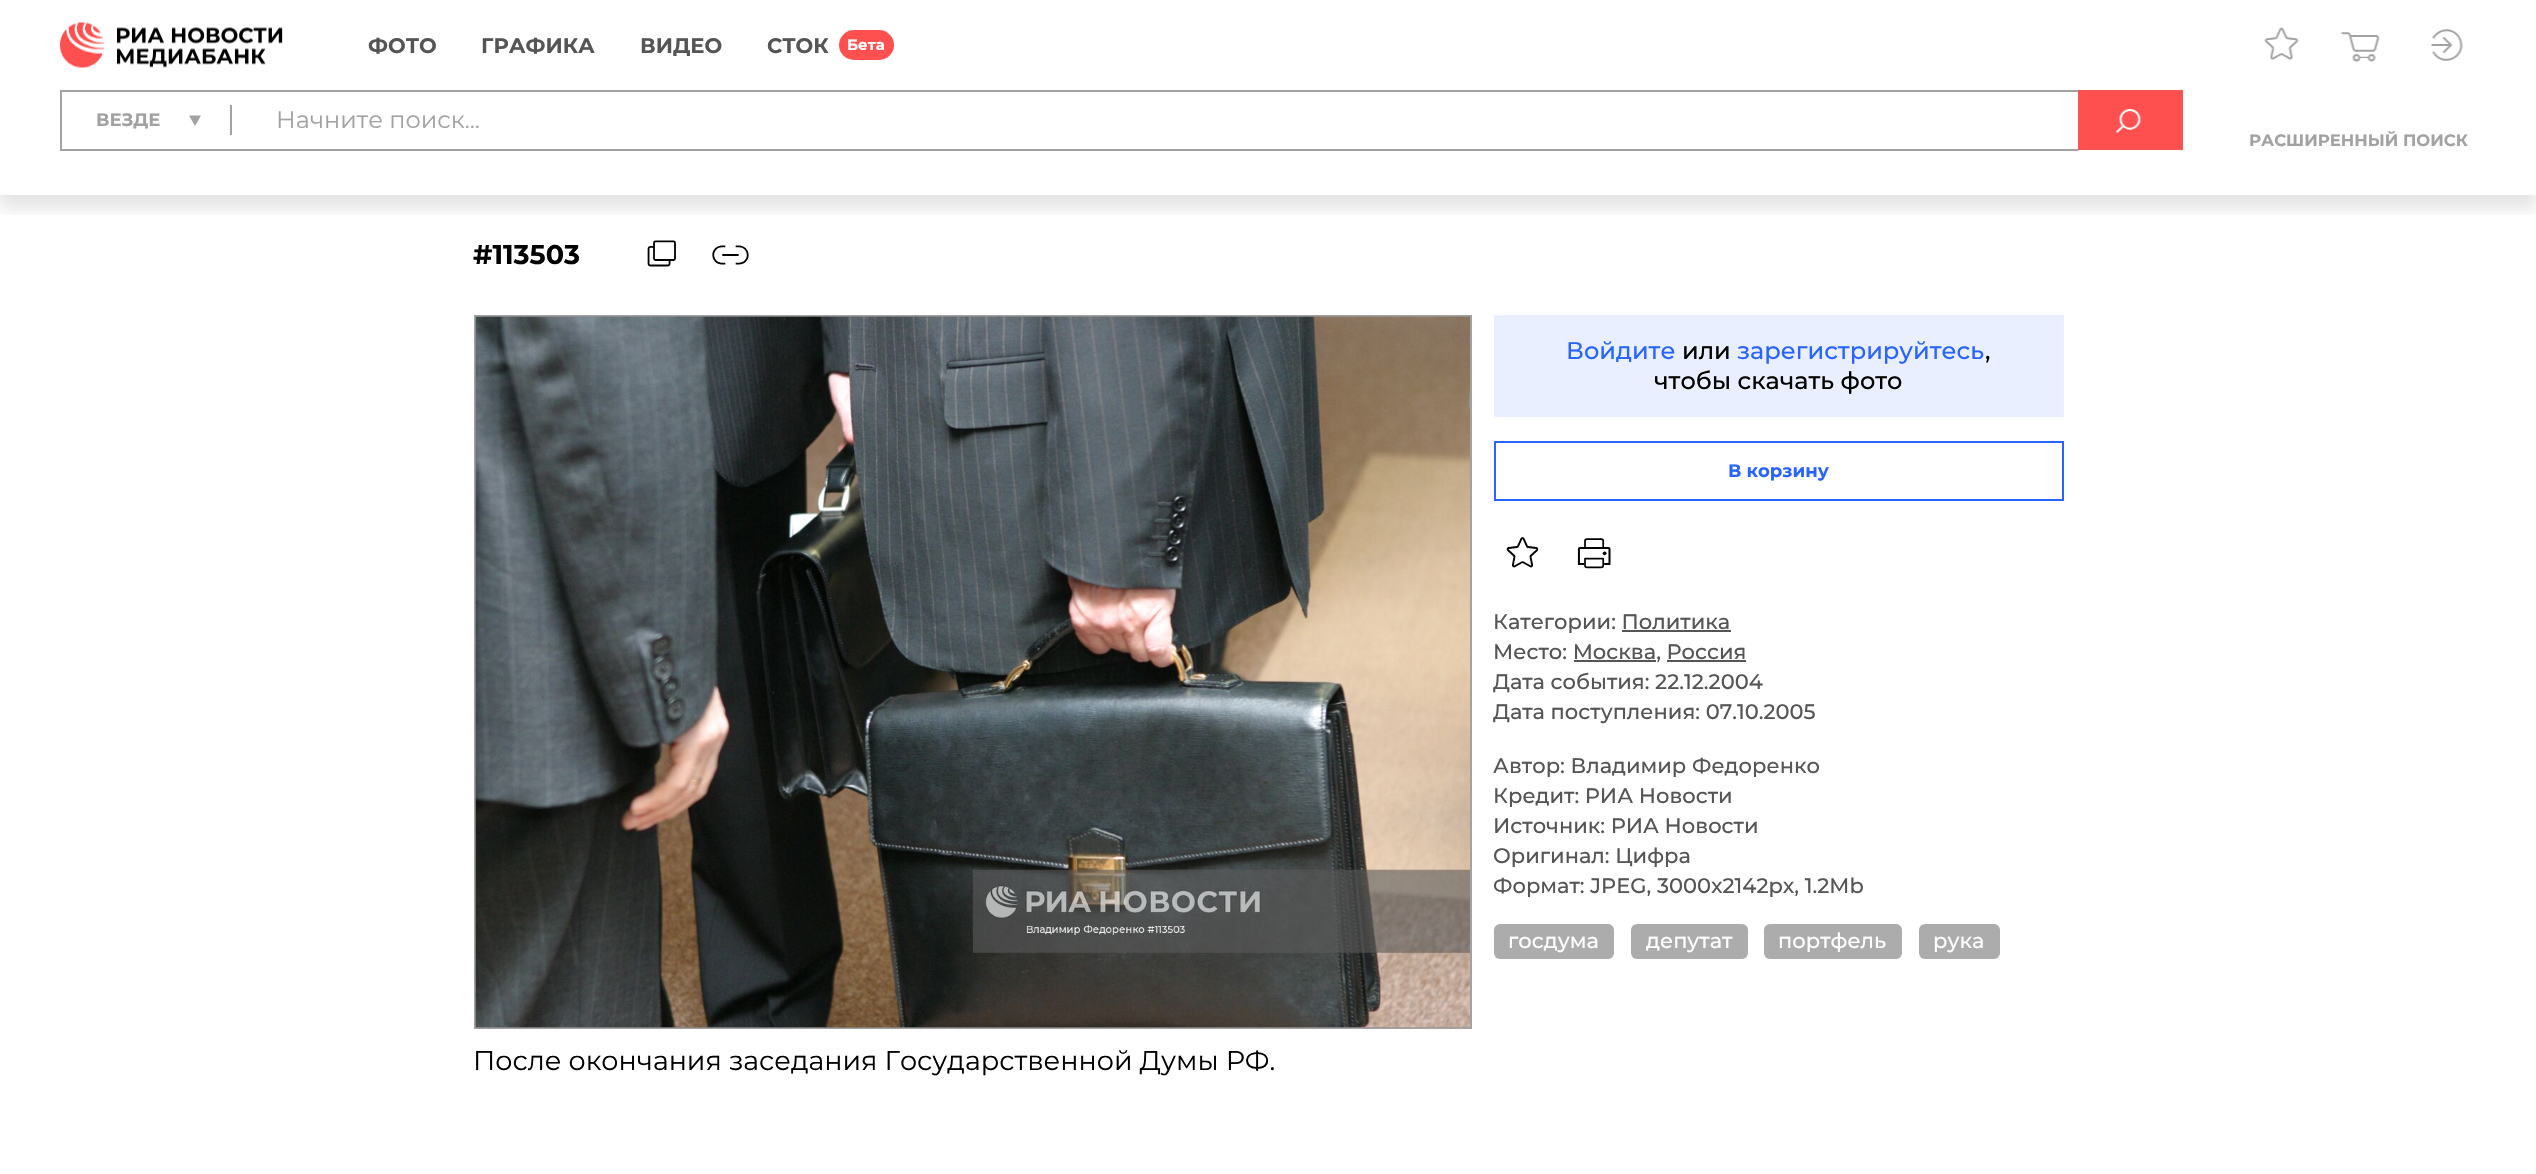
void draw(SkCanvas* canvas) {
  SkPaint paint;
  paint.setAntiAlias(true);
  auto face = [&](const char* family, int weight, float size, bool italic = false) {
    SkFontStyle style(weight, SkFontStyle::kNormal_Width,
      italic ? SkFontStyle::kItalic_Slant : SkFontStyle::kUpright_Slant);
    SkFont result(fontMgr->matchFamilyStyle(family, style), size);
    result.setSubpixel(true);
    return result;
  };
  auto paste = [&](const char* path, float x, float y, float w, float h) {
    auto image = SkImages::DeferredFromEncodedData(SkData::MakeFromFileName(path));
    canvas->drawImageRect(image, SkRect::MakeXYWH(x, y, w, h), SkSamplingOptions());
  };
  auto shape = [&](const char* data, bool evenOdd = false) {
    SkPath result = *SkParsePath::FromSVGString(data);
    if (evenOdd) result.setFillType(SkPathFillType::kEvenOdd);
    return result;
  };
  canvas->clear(0xffffffff);
  canvas->save();
  canvas->clipRect(SkRect::MakeXYWH(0, 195, 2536, 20));
  paint.setColor(0x1a000000);
  paint.setMaskFilter(SkMaskFilter::MakeBlur(kNormal_SkBlurStyle, 7.5f));
  canvas->drawRect(SkRect::MakeXYWH(0, 14, 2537, 195), paint);
  paint.setMaskFilter(nullptr);
  canvas->restore();
  paste("img/1.png", 60, 22, 223, 46);
  paint.setColor(0xffff5050);
  canvas->drawRoundRect(SkRect::MakeXYWH(839, 30, 55, 30), 15, 15, paint);
  paste("img/2.png", 2264, 27, 35, 33);
  paste("img/3.png", 2341, 32, 39, 30);
  paste("img/4.png", 2431, 29, 32, 32);
  {
    const struct { float x, y, w, h; SkColor color; } items[] = {
      {60, 90, 2018, 2, 0xffa3a2a2},
      {60, 149, 2018, 2, 0xffa3a2a2},
      {60, 90, 2, 60, 0xffa3a2a2},
    };
    for (auto [x, y, w, h, color] : items) {
      paint.setColor(color);
      canvas->drawRect(SkRect::MakeXYWH(x, y, w, h), paint);
    }
  }
  canvas->drawPath(shape("M189 115.5H201L195 126Z"), paint);
  canvas->drawRect(SkRect::MakeXYWH(230, 105, 2, 30), paint);
  paint.setColor(0xffff5050);
  canvas->drawRect(SkRect::MakeXYWH(2078, 90, 105, 60), paint);
  paste("img/5.png", 2115, 109, 26, 24);
  paste("img/6.png", 647, 240, 29, 27);
  paste("img/7.png", 712, 245, 37, 20);
  paint.setColor(0xffe9efff);
  canvas->drawRect(SkRect::MakeXYWH(1494, 315, 570, 102), paint);
  paint.setStroke(true);
  paint.setStrokeWidth(2);
  paint.setColor(0xff2864ff);
  canvas->drawRect(SkRect::MakeXYWH(1495, 442, 568, 58), paint);
  paste("img/8.png", 1506, 537, 33, 31);
  paste("img/9.png", 1577, 538, 34, 31);
  paint.setStroke(false);
  {
    const struct { float x, y, w, h; SkColor color; } items[] = {
      {1622, 630, 109, 2, 0xff555555},
      {1574, 660, 82, 2, 0xff555555},
      {1667, 660, 79, 2, 0xff555555},
    };
    for (auto [x, y, w, h, color] : items) {
      paint.setColor(color);
      canvas->drawRect(SkRect::MakeXYWH(x, y, w, h), paint);
    }
  }
  paint.setColor(0xffacacac);
  canvas->drawRoundRect(SkRect::MakeXYWH(1494, 924, 120, 35), 6, 6, paint);
  canvas->drawRoundRect(SkRect::MakeXYWH(1631, 924, 117, 35), 6, 6, paint);
  canvas->drawRoundRect(SkRect::MakeXYWH(1764, 924, 138, 35), 6, 6, paint);
  canvas->drawRoundRect(SkRect::MakeXYWH(1919, 924, 81, 35), 6, 6, paint);
  paint.setStroke(true);
  paint.setColor(0xffa3a2a2);
  canvas->drawRect(SkRect::MakeXYWH(475, 316, 996, 712), paint);
  paste("img/10.png", 475, 316, 995, 712);
  paste("img/11.png", 475, 316, 995, 712);
  auto f0 = face("Montserrat", 700, 21);
  paint.setStroke(false);
  paint.setColor(0xff555555);
  {
    const struct { const char* s; float x, y; } items[] = {
      {"ФОТО", 368, 53},
      {"ГРАФИКА", 481, 53},
      {"ВИДЕО", 640, 53},
      {"СТОК", 767, 53},
    };
    for (auto [s, x, y] : items) {
      canvas->drawString(s, x, y, f0, paint);
    }
  }
  auto f1 = face("Montserrat", 700, 15);
  paint.setColor(0xffffffff);
  canvas->drawString("Бета", 847, 50, f1, paint);
  auto f2 = face("Montserrat", 700, 18);
  paint.setColor(0xffa3a2a2);
  canvas->drawString("ВЕЗДЕ", 96, 126, f2, paint);
  auto f3 = face("Montserrat", 400, 24);
  canvas->drawString("Начните поиск...", 276, 128, f3, paint);
  auto f4 = face("Montserrat", 700, 16.5f);
  canvas->drawString("РАСШИРЕННЫЙ ПОИСК", 2249, 146, f4, paint);
  auto f5 = face("Montserrat", 700, 27);
  paint.setColor(0xff000000);
  canvas->drawString("#113503", 473, 264, f5, paint);
  auto f6 = face("Montserrat", 500, 24);
  paint.setColor(0xff2864ff);
  canvas->drawString("Войдите", 1566, 359, f6, paint);
  paint.setColor(0xff000000);
  canvas->drawString("или", 1682, 359, f6, paint);
  paint.setColor(0xff2864ff);
  canvas->drawString("зарегистрируйтесь", 1737, 359, f6, paint);
  paint.setColor(0xff000000);
  canvas->drawString(",", 1985, 359, f6, paint);
  canvas->drawString("чтобы скачать фото", 1654, 389, f6, paint);
  paint.setColor(0xff2864ff);
  canvas->drawString("В корзину", 1728, 477, f2, paint);
  auto f7 = face("Montserrat", 500, 21);
  paint.setColor(0xff555555);
  {
    const struct { const char* s; float x, y; } items[] = {
      {"Категории: Политика", 1493, 629},
      {"Место: Москва, Россия", 1493, 659},
      {"Дата события: 22.12.2004", 1493, 689},
      {"Дата поступления: 07.10.2005", 1493, 719},
      {"Автор: Владимир Федоренко", 1493, 773},
      {"Кредит: РИА Новости", 1493, 803},
      {"Источник: РИА Новости", 1493, 833},
      {"Оригинал: Цифра", 1493, 863},
      {"Формат: JPEG, 3000x2142px, 1.2Mb", 1493, 893},
    };
    for (auto [s, x, y] : items) {
      canvas->drawString(s, x, y, f7, paint);
    }
  }
  paint.setColor(0xffffffff);
  {
    const struct { const char* s; float x, y; } items[] = {
      {"госдума", 1508, 948},
      {"депутат", 1646, 948},
      {"портфель", 1778, 948},
      {"рука", 1933, 948},
    };
    for (auto [s, x, y] : items) {
      canvas->drawString(s, x, y, f7, paint);
    }
  }
  auto f8 = face("Montserrat", 400, 27);
  paint.setColor(0xff000000);
  canvas->drawString("После окончания заседания Государственной Думы РФ.", 473, 1070, f8, paint);
}
